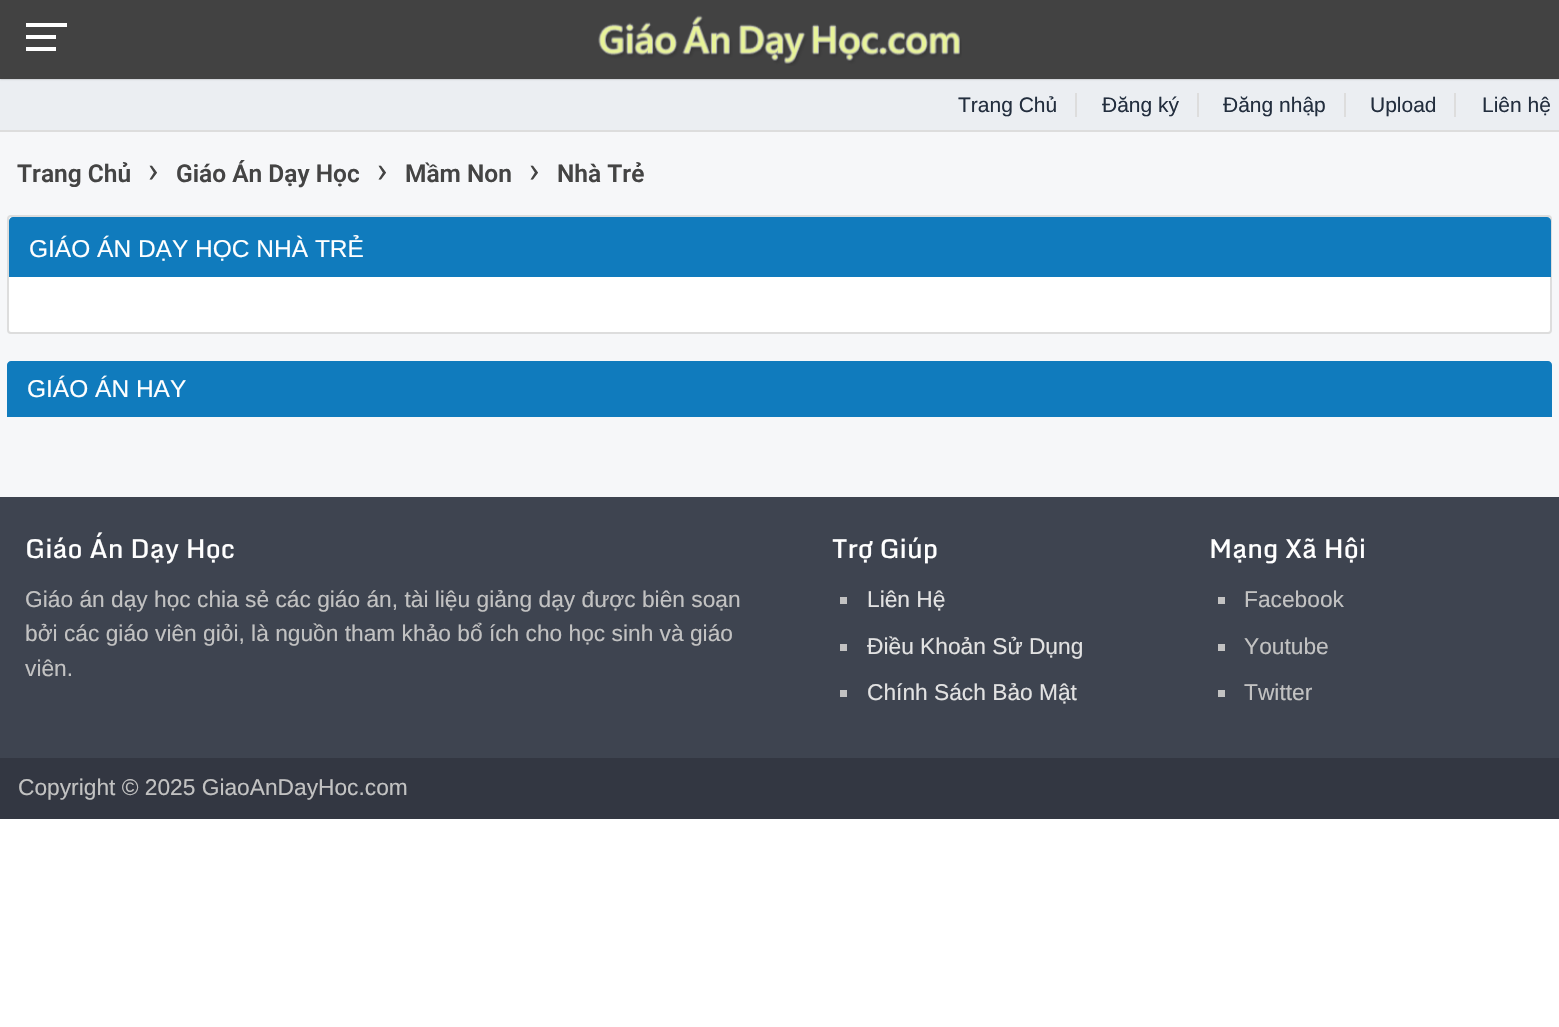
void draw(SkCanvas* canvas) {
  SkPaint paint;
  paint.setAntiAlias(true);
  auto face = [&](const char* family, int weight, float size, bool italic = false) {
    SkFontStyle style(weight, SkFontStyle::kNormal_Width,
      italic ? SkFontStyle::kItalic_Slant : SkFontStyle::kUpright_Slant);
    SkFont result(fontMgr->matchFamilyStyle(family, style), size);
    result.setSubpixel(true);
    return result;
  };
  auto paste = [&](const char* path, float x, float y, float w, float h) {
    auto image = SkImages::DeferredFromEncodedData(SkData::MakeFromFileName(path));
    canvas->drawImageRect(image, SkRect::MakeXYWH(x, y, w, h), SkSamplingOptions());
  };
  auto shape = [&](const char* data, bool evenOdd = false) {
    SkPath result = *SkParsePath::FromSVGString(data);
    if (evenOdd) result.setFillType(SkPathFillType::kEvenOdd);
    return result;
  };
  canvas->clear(0xffffffff);
  paint.setColor(0xfff6f7f9);
  canvas->drawRect(SkRect::MakeXYWH(0, 132, 1559, 365), paint);
  paint.setColor(0xffebeef2);
  canvas->drawRect(SkRect::MakeXYWH(0, 79, 1559, 51), paint);
  paint.setColor(0x4d000000);
  paint.setMaskFilter(SkMaskFilter::MakeBlur(kNormal_SkBlurStyle, 1));
  canvas->drawRect(SkRect::MakeXYWH(0, 0, 1559, 79), paint);
  paint.setMaskFilter(nullptr);
  {
    const struct { float x, y, w, h; SkColor color; } items[] = {
      {0, 0, 1559, 79, 0xff424242},
      {26, 35, 30, 4, 0xffffffff},
      {26, 23, 41, 4, 0xffffffff},
      {26, 47, 30, 4, 0xffffffff},
    };
    for (auto [x, y, w, h, color] : items) {
      paint.setColor(color);
      canvas->drawRect(SkRect::MakeXYWH(x, y, w, h), paint);
    }
  }
  paste("img/1.png", 598, 15, 364, 51);
  {
    const struct { float x, y, w, h; SkColor color; } items[] = {
      {0, 130, 1559, 2, 0xffdddddd},
      {1075, 93, 2, 24, 0xffdddddd},
      {1197, 93, 2, 24, 0xffdddddd},
      {1344, 93, 2, 24, 0xffdddddd},
      {1454, 93, 2, 24, 0xffdddddd},
    };
    for (auto [x, y, w, h, color] : items) {
      paint.setColor(color);
      canvas->drawRect(SkRect::MakeXYWH(x, y, w, h), paint);
    }
  }
  paint.setColor(0xffffffff);
  canvas->drawRoundRect(SkRect::MakeXYWH(8, 216, 1543, 117), 3, 3, paint);
  paint.setStroke(true);
  paint.setStrokeWidth(2);
  paint.setColor(0xffdddddd);
  canvas->drawRoundRect(SkRect::MakeXYWH(8, 216, 1543, 117), 3, 3, paint);
  paint.setStroke(false);
  paint.setColor(0xff107bbd);
  canvas->drawPath(shape("M13 218H1547C1548.5 218 1550 219.5 1550 221V276H10V221C10 219.5 11.5 218 13 218Z"), paint);
  paint.setStroke(true);
  canvas->drawPath(shape("M13 218H1547C1548.5 218 1550 219.5 1550 221V276H10V221C10 219.5 11.5 218 13 218Z"), paint);
  paint.setStroke(false);
  canvas->drawPath(shape("M11 362H1548C1549.5 362 1551 363.5 1551 365V416H8V365C8 363.5 9.5 362 11 362Z"), paint);
  paint.setStroke(true);
  canvas->drawPath(shape("M11 362H1548C1549.5 362 1551 363.5 1551 365V416H8V365C8 363.5 9.5 362 11 362Z"), paint);
  paint.setStroke(false);
  {
    const struct { float x, y, w, h; SkColor color; } items[] = {
      {0, 497, 1559, 261, 0xff3e4450},
      {840, 597, 7, 7, 0xffc2c2c2},
      {840, 644, 7, 7, 0xffc2c2c2},
      {840, 690, 7, 7, 0xffc2c2c2},
      {1218, 597, 7, 7, 0xffc2c2c2},
      {1218, 644, 7, 7, 0xffc2c2c2},
      {1218, 690, 7, 7, 0xffc2c2c2},
      {0, 758, 1559, 61, 0xff333742},
    };
    for (auto [x, y, w, h, color] : items) {
      paint.setColor(color);
      canvas->drawRect(SkRect::MakeXYWH(x, y, w, h), paint);
    }
  }
  auto f0 = face("Liberation Sans", 400, 21);
  paint.setColor(0xff232e3e);
  {
    const struct { const char* s; float x, y; } items[] = {
      {"Trang Chủ", 958, 112},
      {"Đăng ký", 1102, 112},
      {"Đăng nhập", 1223, 112},
      {"Upload", 1370, 112},
      {"Liên hệ", 1482, 112},
    };
    for (auto [s, x, y] : items) {
      canvas->drawString(s, x, y, f0, paint);
    }
  }
  auto f1 = face("Roboto", 600, 24.5f);
  paint.setColor(0xff444444);
  canvas->drawString("Trang Chủ", 17, 182, f1, paint);
  auto f2 = face("Roboto", 400, 35);
  canvas->drawString("›", 148, 182, f2, paint);
  canvas->drawString("Giáo Án Dạy Học", 176, 182, f1, paint);
  canvas->drawString("›", 377, 182, f2, paint);
  canvas->drawString("Mầm Non", 405, 182, f1, paint);
  canvas->drawString("›", 529, 182, f2, paint);
  canvas->drawString("Nhà Trẻ", 557, 182, f1, paint);
  auto f3 = face("Liberation Sans", 400, 24.5f);
  paint.setColor(0xffffffff);
  canvas->drawString("GIÁO ÁN DẠY HỌC NHÀ TRẺ", 29, 257, f3, paint);
  canvas->drawString("GIÁO ÁN HAY", 27, 397, f3, paint);
  auto f4 = face("Monda", 500, 26.25f);
  canvas->drawString("Giáo Án Dạy Học", 25, 558, f4, paint);
  auto f5 = face("Liberation Sans", 400, 22.75f);
  paint.setColor(0xffc2c2c2);
  {
    const struct { const char* s; float x, y; } items[] = {
      {"Giáo án dạy học chia sẻ các giáo án, tài liệu giảng dạy được biên soạn", 25, 607},
      {"bởi các giáo viên giỏi, là nguồn tham khảo bổ ích cho học sinh và giáo", 25, 641},
      {"viên.", 25, 676},
    };
    for (auto [s, x, y] : items) {
      canvas->drawString(s, x, y, f5, paint);
    }
  }
  paint.setColor(0xffffffff);
  canvas->drawString("Trợ Giúp", 832, 558, f4, paint);
  paint.setColor(0xffe2e2e2);
  {
    const struct { const char* s; float x, y; } items[] = {
      {"Liên Hệ", 867, 607},
      {"Điều Khoản Sử Dụng", 867, 654},
      {"Chính Sách Bảo Mật", 867, 700},
    };
    for (auto [s, x, y] : items) {
      canvas->drawString(s, x, y, f5, paint);
    }
  }
  paint.setColor(0xffffffff);
  canvas->drawString("Mạng Xã Hội", 1209, 558, f4, paint);
  paint.setColor(0xffc2c2c2);
  {
    const struct { const char* s; float x, y; } items[] = {
      {"Facebook", 1244, 607},
      {"Youtube", 1244, 654},
      {"Twitter", 1244, 700},
      {"Copyright © 2025 GiaoAnDayHoc.com", 18, 795},
    };
    for (auto [s, x, y] : items) {
      canvas->drawString(s, x, y, f5, paint);
    }
  }
}
